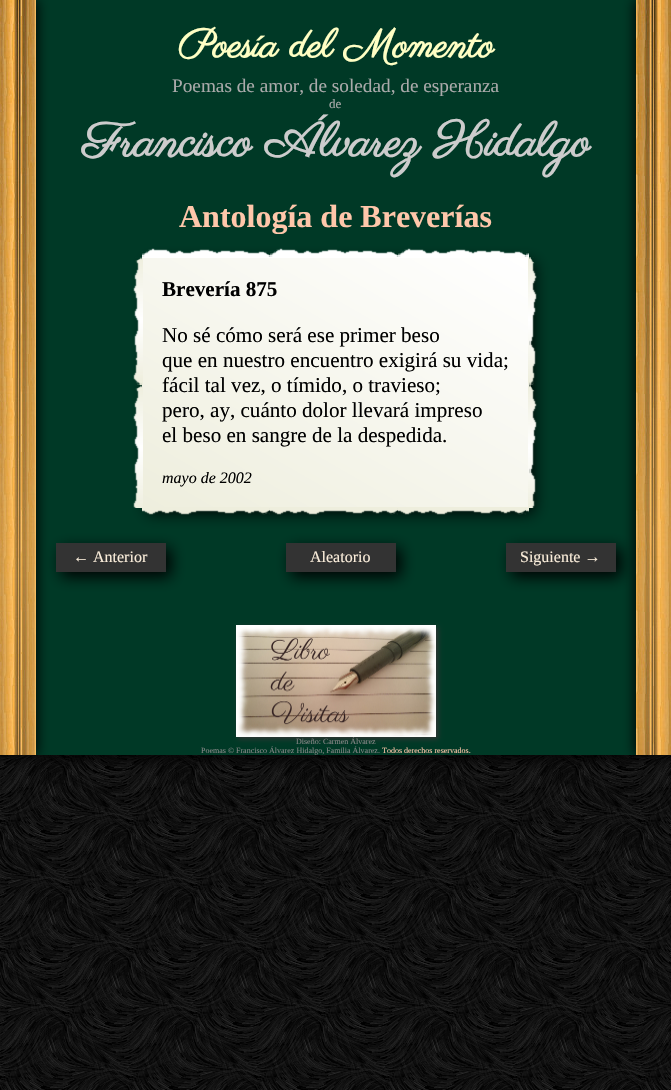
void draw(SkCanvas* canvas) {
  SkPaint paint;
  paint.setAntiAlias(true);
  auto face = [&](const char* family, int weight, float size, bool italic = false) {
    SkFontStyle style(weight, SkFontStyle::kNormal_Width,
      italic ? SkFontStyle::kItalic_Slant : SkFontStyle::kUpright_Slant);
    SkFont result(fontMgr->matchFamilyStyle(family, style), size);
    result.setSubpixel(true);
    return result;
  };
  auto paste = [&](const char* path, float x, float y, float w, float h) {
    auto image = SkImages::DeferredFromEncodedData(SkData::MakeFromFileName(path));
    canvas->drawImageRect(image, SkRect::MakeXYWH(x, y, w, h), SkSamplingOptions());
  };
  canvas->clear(0xffffffff);
  paste("img/1.png", 0, 755, 671, 335);
  paint.setColor(0xff000000);
  paint.setMaskFilter(SkMaskFilter::MakeBlur(kNormal_SkBlurStyle, 7.5f));
  canvas->drawRect(SkRect::MakeXYWH(36, 2, 600, 755), paint);
  paint.setMaskFilter(nullptr);
  paint.setColor(0xff003926);
  canvas->drawRect(SkRect::MakeXYWH(36, 0, 600, 755), paint);
  paint.setColor(0xff000000);
  paint.setMaskFilter(SkMaskFilter::MakeBlur(kNormal_SkBlurStyle, 6));
  canvas->drawRect(SkRect::MakeXYWH(-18, 0, 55, 755), paint);
  paint.setMaskFilter(nullptr);
  paste("img/2.png", 0, 0, 36, 755);
  paint.setMaskFilter(SkMaskFilter::MakeBlur(kNormal_SkBlurStyle, 6));
  canvas->drawRect(SkRect::MakeXYWH(635, 0, 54, 755), paint);
  paint.setMaskFilter(nullptr);
  paste("img/3.png", 636, 0, 35, 755);
  paint.setMaskFilter(SkMaskFilter::MakeBlur(kNormal_SkBlurStyle, 7.5f));
  canvas->drawRect(SkRect::MakeXYWH(147, 262, 387, 251), paint);
  paint.setMaskFilter(nullptr);
  {
    const SkColor colors[] = {0xffeeeedd, 0xffffffff};
    const float stops[] = {0, 1};
    const SkPoint ends[] = {{233, 560}, {438, 205}};
    paint.setShader(SkGradientShader::MakeLinear(ends, colors, stops, 2, SkTileMode::kClamp));
    paint.setAlpha(255);
  }
  canvas->drawRect(SkRect::MakeXYWH(142, 257, 387, 251), paint);
  paste("img/4.png", 142, 248, 387, 10);
  paste("img/5.png", 133, 257, 10, 251);
  paste("img/6.png", 528, 257, 9, 251);
  paste("img/7.png", 142, 507, 387, 8);
  paint.setShader(nullptr);
  paint.setColor(0xff000000);
  paint.setMaskFilter(SkMaskFilter::MakeBlur(kNormal_SkBlurStyle, 7.5f));
  canvas->drawRect(SkRect::MakeXYWH(61, 548, 110, 29), paint);
  paint.setMaskFilter(nullptr);
  paint.setColor(0xff333333);
  canvas->drawRect(SkRect::MakeXYWH(56, 543, 110, 29), paint);
  paint.setColor(0xff000000);
  paint.setMaskFilter(SkMaskFilter::MakeBlur(kNormal_SkBlurStyle, 7.5f));
  canvas->drawRect(SkRect::MakeXYWH(291, 548, 110, 29), paint);
  paint.setMaskFilter(nullptr);
  paint.setColor(0xff333333);
  canvas->drawRect(SkRect::MakeXYWH(286, 543, 110, 29), paint);
  paint.setColor(0xff000000);
  paint.setMaskFilter(SkMaskFilter::MakeBlur(kNormal_SkBlurStyle, 7.5f));
  canvas->drawRect(SkRect::MakeXYWH(511, 548, 110, 29), paint);
  paint.setMaskFilter(nullptr);
  paint.setColor(0xff333333);
  canvas->drawRect(SkRect::MakeXYWH(506, 543, 110, 29), paint);
  paint.setMaskFilter(SkMaskFilter::MakeBlur(kNormal_SkBlurStyle, 2.5f));
  canvas->drawRect(SkRect::MakeXYWH(238, 627, 200, 112), paint);
  paint.setMaskFilter(nullptr);
  paste("img/8.png", 236, 625, 200, 112);
  auto f0 = face("Parisienne", 700, 40);
  paint.setColor(0xffffffc4);
  canvas->drawString("Poesía del Momento", 178, 57, f0, paint);
  auto f1 = face("Liberation Serif", 400, 19.25f);
  paint.setColor(0xffaaaaaa);
  canvas->drawString("Poemas de amor, de soledad, de esperanza", 172, 92, f1, paint);
  auto f2 = face("Liberation Serif", 400, 13);
  canvas->drawString("de", 329, 108, f2, paint);
  auto f3 = face("Parisienne", 700, 48);
  paint.setColor(0xffcccccc);
  canvas->drawString("Francisco Álvarez Hidalgo", 82, 156, f3, paint);
  auto f4 = face("Liberation Serif", 700, 32);
  paint.setColor(0xffffc7aa);
  canvas->drawString("Antología de Breverías", 179, 227, f4, paint);
  auto f5 = face("Liberation Serif", 700, 21.1f);
  paint.setColor(0xff000000);
  canvas->drawString("Brevería 875", 162, 296, f5, paint);
  auto f6 = face("Liberation Serif", 400, 21.1f);
  {
    const struct { const char* s; float x, y; } items[] = {
      {"No sé cómo será ese primer beso", 162, 342},
      {"que en nuestro encuentro exigirá su vida;", 162, 367},
      {"fácil tal vez, o tímido, o travieso;", 162, 392},
      {"pero, ay, cuánto dolor llevará impreso", 162, 417},
      {"el beso en sangre de la despedida.", 162, 442},
    };
    for (auto [s, x, y] : items) {
      canvas->drawString(s, x, y, f6, paint);
    }
  }
  auto f7 = face("Liberation Serif", 400, 16, true);
  canvas->drawString("mayo de 2002", 162, 483, f7, paint);
  auto f8 = face("Liberation Serif", 400, 16);
  paint.setColor(0xfffaedda);
  {
    const struct { const char* s; float x, y; } items[] = {
      {"← Anterior", 73, 562},
      {"Aleatorio", 310, 562},
      {"Siguiente →", 520, 562},
    };
    for (auto [s, x, y] : items) {
      canvas->drawString(s, x, y, f8, paint);
    }
  }
  auto f9 = face("Liberation Serif", 400, 8);
  paint.setColor(0xff888888);
  canvas->drawString("Diseño: Carmen Álvarez", 296, 744, f9, paint);
  canvas->drawString("Poemas © Francisco Álvarez Hidalgo, Familia Álvarez.", 201, 753, f9, paint);
  paint.setColor(0xffffc7aa);
  canvas->drawString("Todos derechos reservados.", 382, 753, f9, paint);
}
